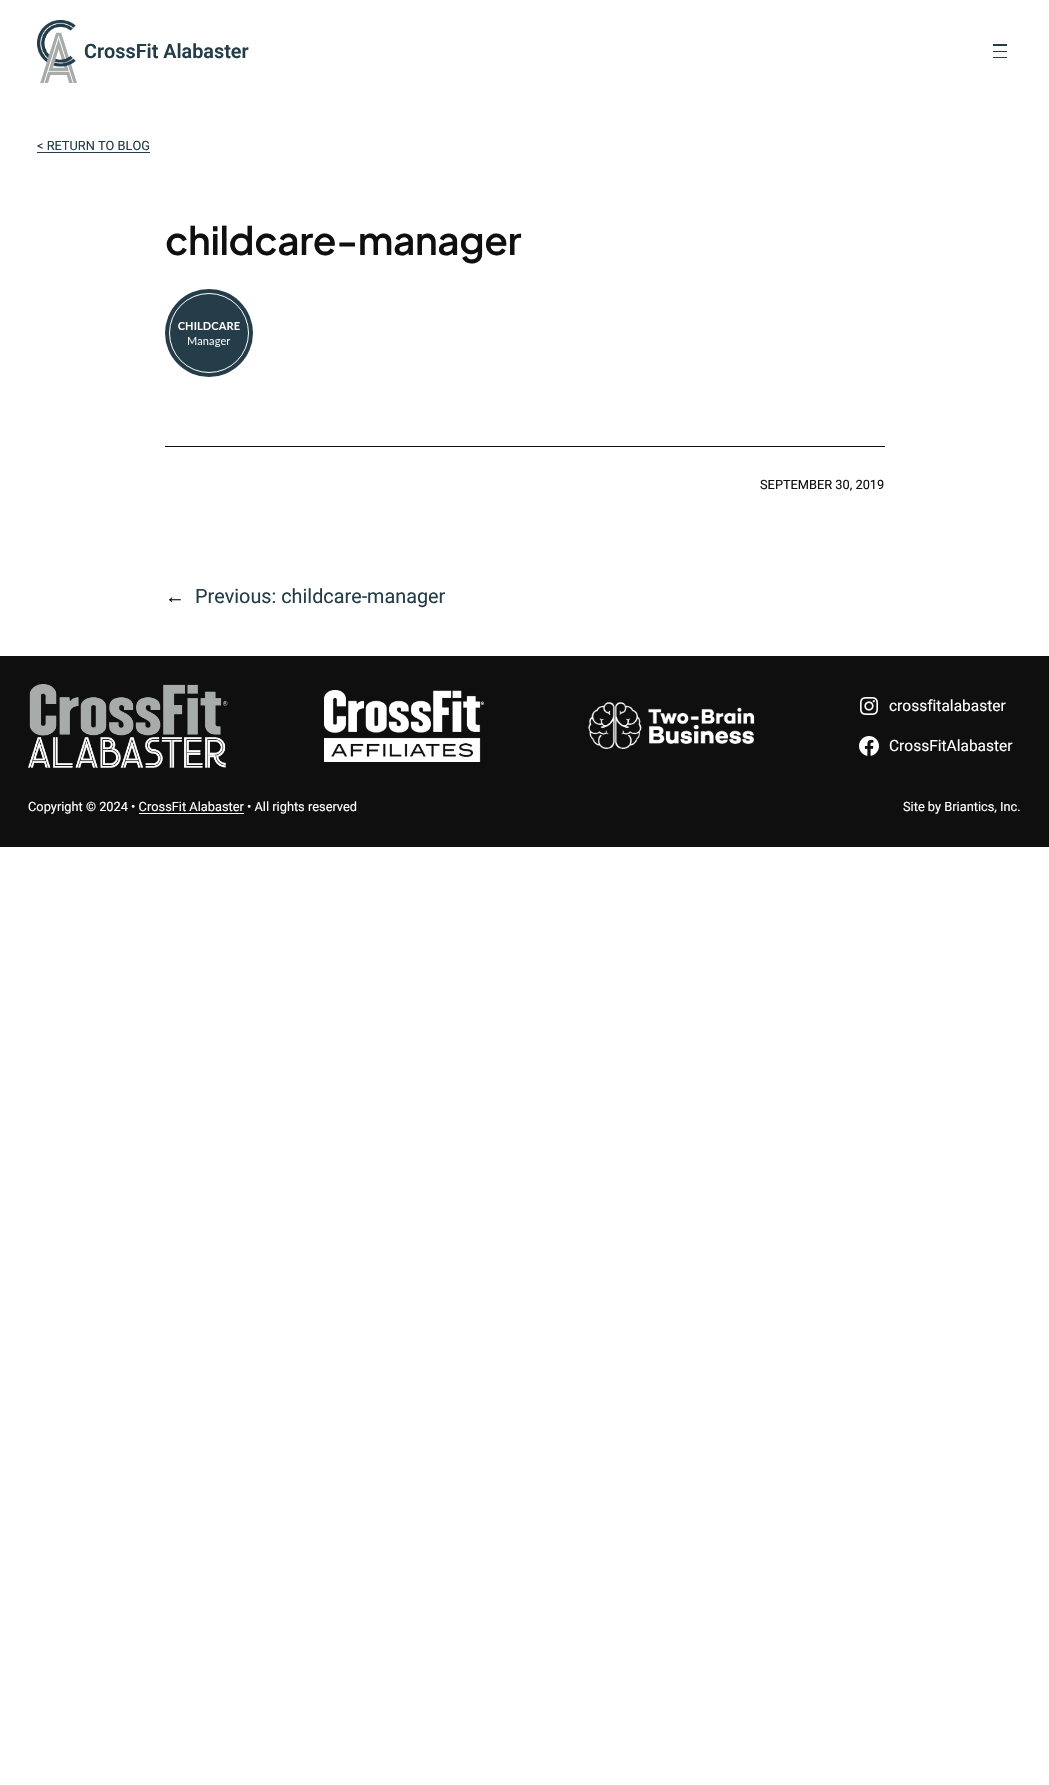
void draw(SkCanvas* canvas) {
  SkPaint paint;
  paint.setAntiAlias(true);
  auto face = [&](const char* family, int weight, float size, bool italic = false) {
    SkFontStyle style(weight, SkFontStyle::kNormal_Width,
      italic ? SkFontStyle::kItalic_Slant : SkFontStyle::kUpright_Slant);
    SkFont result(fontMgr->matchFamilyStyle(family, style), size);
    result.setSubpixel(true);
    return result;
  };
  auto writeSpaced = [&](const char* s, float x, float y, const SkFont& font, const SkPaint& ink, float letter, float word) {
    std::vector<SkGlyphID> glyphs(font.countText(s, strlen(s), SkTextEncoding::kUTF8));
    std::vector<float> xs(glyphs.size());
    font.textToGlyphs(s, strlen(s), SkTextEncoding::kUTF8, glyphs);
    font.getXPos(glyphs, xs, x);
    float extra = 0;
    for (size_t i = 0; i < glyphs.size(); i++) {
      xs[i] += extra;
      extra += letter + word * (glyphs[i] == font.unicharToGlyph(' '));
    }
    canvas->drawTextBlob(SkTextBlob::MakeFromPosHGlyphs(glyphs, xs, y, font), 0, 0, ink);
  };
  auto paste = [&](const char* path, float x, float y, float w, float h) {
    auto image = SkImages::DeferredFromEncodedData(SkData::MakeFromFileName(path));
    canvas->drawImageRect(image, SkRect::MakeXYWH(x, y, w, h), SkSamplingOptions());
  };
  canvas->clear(0xffffffff);
  paste("img/1.png", 37, 20, 40, 63);
  {
    const struct { float x, y, w, h; SkColor color; } items[] = {
      {993, 44, 14, 2, 0xff243d48},
      {993, 51, 14, 1, 0xff243d48},
      {993, 57, 14, 1, 0xff243d48},
      {37, 152, 113, 1, 0xff243d48},
    };
    for (auto [x, y, w, h, color] : items) {
      paint.setColor(color);
      canvas->drawRect(SkRect::MakeXYWH(x, y, w, h), paint);
    }
  }
  paste("img/2.png", 165, 289, 88, 88);
  paint.setColor(0xff0f0f0f);
  canvas->drawRect(SkRect::MakeXYWH(165, 446, 720, 1), paint);
  canvas->drawRect(SkRect::MakeXYWH(0, 656, 1049, 191), paint);
  paste("img/3.png", 28, 684, 200, 84);
  paste("img/4.png", 324, 690, 160, 72);
  paste("img/5.png", 588, 701, 167, 48);
  paste("img/6.png", 860, 697, 18, 18);
  paste("img/7.png", 859, 736, 20, 20);
  paint.setColor(0xffffffff);
  canvas->drawRect(SkRect::MakeXYWH(139, 813, 105, 1), paint);
  auto f0 = face("Roboto", 600, 19.8f);
  paint.setColor(0xff243d48);
  canvas->drawString("CrossFit Alabaster", 84, 58, f0, paint);
  auto f1 = face("Roboto", 400, 12.8f);
  canvas->drawString("< RETURN TO BLOG", 37, 150, f1, paint);
  auto f2 = face("Plus Jakarta Sans", 600, 38.75f);
  paint.setColor(0xff0f0f0f);
  writeSpaced("childcare-manager", 165, 255, f2, paint, -0.4f, 0);
  canvas->drawString("SEPTEMBER 30, 2019", 760, 489, f1, paint);
  auto f3 = face("Liberation Sans", 400, 19.8f);
  canvas->drawString("←", 165, 603, f3, paint);
  auto f4 = face("Roboto", 400, 19.8f);
  paint.setColor(0xff243d48);
  canvas->drawString("Previous: childcare-manager", 195, 603, f4, paint);
  auto f5 = face("Roboto", 400, 15.5f);
  paint.setColor(0xffffffff);
  canvas->drawString("crossfitalabaster", 889, 711, f5, paint);
  canvas->drawString("CrossFitAlabaster", 889, 751, f5, paint);
  canvas->drawString("Copyright © 2024 • CrossFit Alabaster • All rights reserved", 28, 811, f1, paint);
  canvas->drawString("Site by Briantics, Inc.", 903, 811, f1, paint);
}
